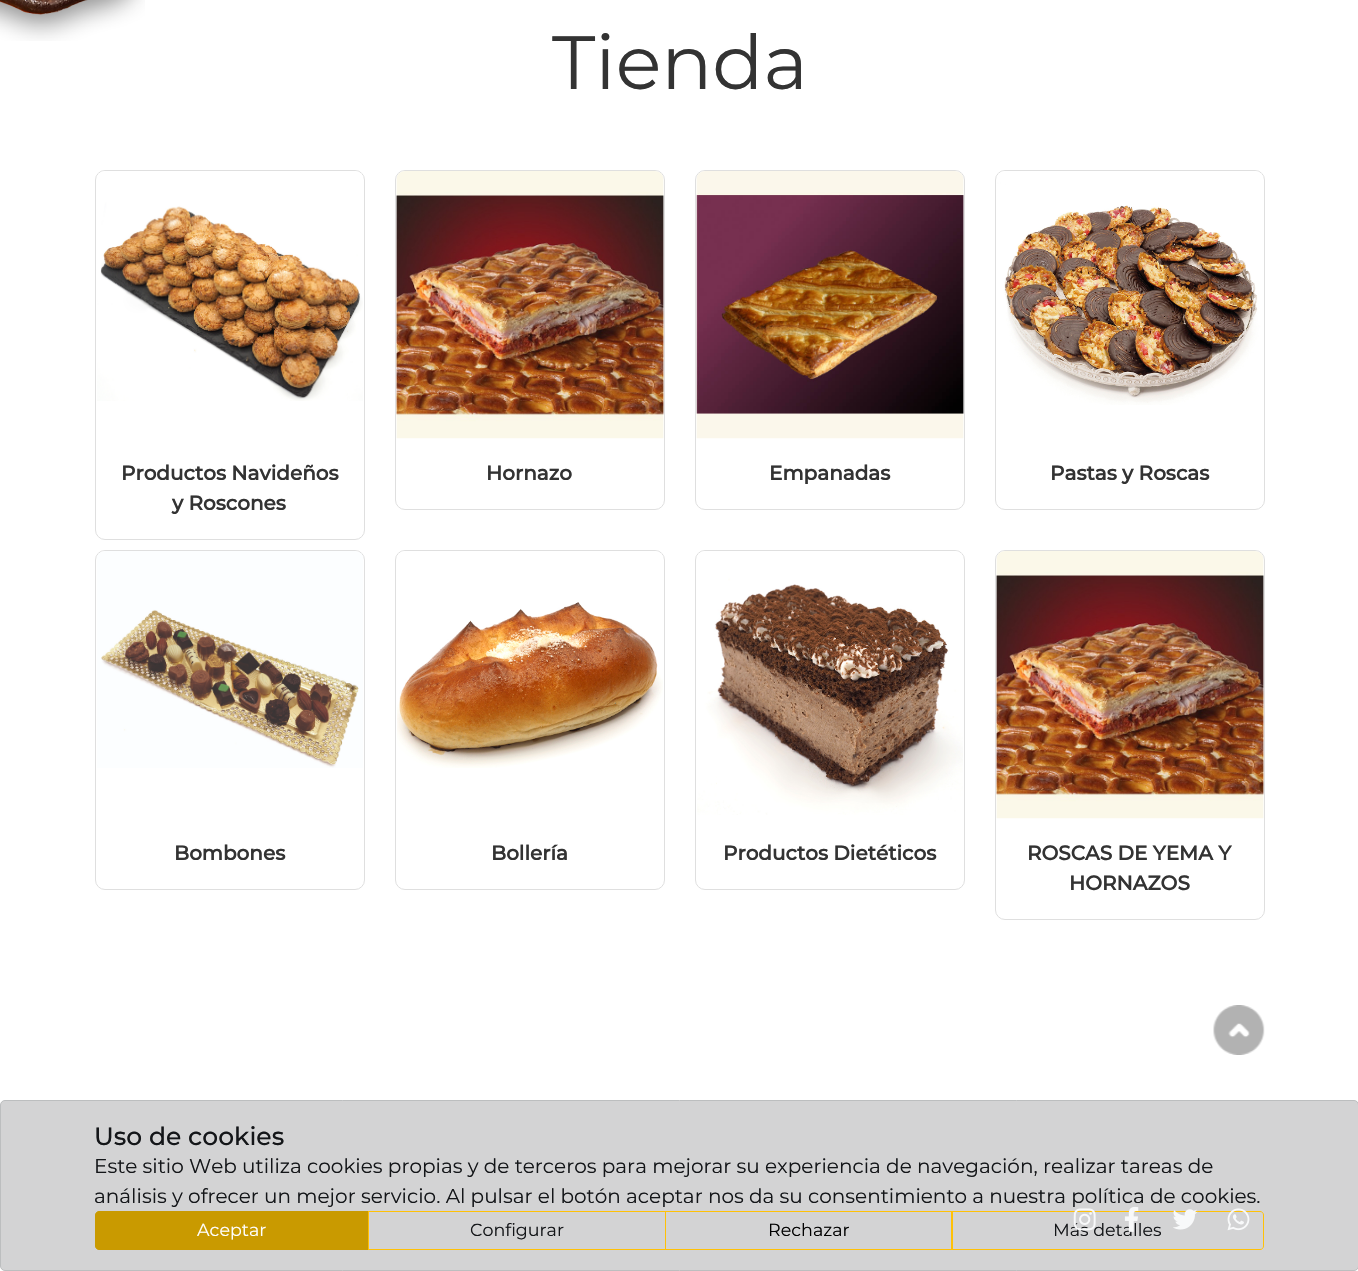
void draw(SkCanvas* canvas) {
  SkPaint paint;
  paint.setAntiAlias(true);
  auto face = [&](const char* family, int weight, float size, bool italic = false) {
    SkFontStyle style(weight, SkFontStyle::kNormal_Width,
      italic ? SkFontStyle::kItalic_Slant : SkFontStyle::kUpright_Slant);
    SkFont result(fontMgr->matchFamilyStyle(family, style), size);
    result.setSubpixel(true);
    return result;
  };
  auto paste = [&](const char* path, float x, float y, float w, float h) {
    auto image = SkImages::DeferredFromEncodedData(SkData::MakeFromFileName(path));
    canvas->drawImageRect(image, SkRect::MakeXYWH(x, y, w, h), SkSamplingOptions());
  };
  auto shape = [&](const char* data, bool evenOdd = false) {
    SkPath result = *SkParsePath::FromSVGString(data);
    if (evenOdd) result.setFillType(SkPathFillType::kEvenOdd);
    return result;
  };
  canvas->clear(0xffffffff);
  paste("img/1.png", 0, 0, 145, 41);
  paint.setStroke(true);
  paint.setStrokeWidth(1);
  paint.setColor(0xffdfdfdf);
  canvas->drawRoundRect(SkRect::MakeXYWH(95.5f, 170.5f, 269, 369), 9.5f, 9.5f, paint);
  paste("img/2.png", 97, 171, 266, 230);
  canvas->drawRoundRect(SkRect::MakeXYWH(395.5f, 170.5f, 269, 339), 9.5f, 9.5f, paint);
  paste("img/3.png", 396, 171, 268, 268);
  canvas->drawRoundRect(SkRect::MakeXYWH(695.5f, 170.5f, 269, 339), 9.5f, 9.5f, paint);
  paste("img/4.png", 696, 171, 268, 268);
  canvas->drawRoundRect(SkRect::MakeXYWH(995.5f, 170.5f, 269, 339), 9.5f, 9.5f, paint);
  paste("img/5.png", 997, 171, 266, 234);
  canvas->drawRoundRect(SkRect::MakeXYWH(95.5f, 550.5f, 269, 339), 9.5f, 9.5f, paint);
  paste("img/6.png", 97, 551, 266, 217);
  canvas->drawRoundRect(SkRect::MakeXYWH(395.5f, 550.5f, 269, 339), 9.5f, 9.5f, paint);
  paste("img/7.png", 397, 551, 266, 217);
  canvas->drawRoundRect(SkRect::MakeXYWH(695.5f, 550.5f, 269, 339), 9.5f, 9.5f, paint);
  paste("img/8.png", 697, 551, 266, 264);
  canvas->drawRoundRect(SkRect::MakeXYWH(995.5f, 550.5f, 269, 369), 9.5f, 9.5f, paint);
  paste("img/9.png", 996, 551, 268, 268);
  paint.setStroke(false);
  paint.setColor(0xffd3d3d4);
  canvas->drawRoundRect(SkRect::MakeXYWH(0.5f, 1100.5f, 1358, 170), 4.5f, 4.5f, paint);
  paint.setStroke(true);
  paint.setColor(0xffbcbebf);
  canvas->drawRoundRect(SkRect::MakeXYWH(0.5f, 1100.5f, 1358, 170), 4.5f, 4.5f, paint);
  paint.setStroke(false);
  paint.setColor(0xffc99a00);
  canvas->drawPath(shape("M99 1211.5H368.5V1249.5H99C97 1249.5 95.5 1248 95.5 1246V1215C95.5 1213 97 1211.5 99 1211.5Z"), paint);
  paint.setStroke(true);
  canvas->drawPath(shape("M99 1211.5H368.5V1249.5H99C97 1249.5 95.5 1248 95.5 1246V1215C95.5 1213 97 1211.5 99 1211.5Z"), paint);
  paint.setColor(0xffffc107);
  canvas->drawRect(SkRect::MakeXYWH(368.5f, 1211.5f, 297, 38), paint);
  canvas->drawRect(SkRect::MakeXYWH(665.5f, 1211.5f, 287, 38), paint);
  canvas->drawPath(shape("M951.5 1211.5H1260C1262 1211.5 1263.5 1213 1263.5 1215V1246C1263.5 1248 1262 1249.5 1260 1249.5H951.5Z"), paint);
  paste("img/12.png", 1173, 1209, 25, 21);
  paste("img/13.png", 1227, 1208, 23, 23);
  paste("img/14.png", 1213, 1005, 52, 50);
  auto f0 = face("Montserrat", 400, 75.5f);
  paint.setStroke(false);
  paint.setColor(0xff333333);
  canvas->drawString("Tienda", 552, 89, f0, paint);
  auto f1 = face("Montserrat", 700, 20);
  {
    const struct { const char* s; float x, y; } items[] = {
      {"Productos Navideños", 121, 480},
      {"y Roscones", 172, 510},
      {"Hornazo", 486, 480},
      {"Empanadas", 769, 480},
      {"Pastas y Roscas", 1050, 480},
      {"Bombones", 174, 860},
      {"Bollería", 491, 860},
      {"Productos Dietéticos", 723, 860},
      {"ROSCAS DE YEMA Y", 1027, 860},
      {"HORNAZOS", 1069, 890},
    };
    for (auto [s, x, y] : items) {
      canvas->drawString(s, x, y, f1, paint);
    }
  }
  auto f2 = face("Montserrat", 500, 25);
  paint.setColor(0xff141619);
  canvas->drawString("Uso de cookies", 94, 1145, f2, paint);
  auto f3 = face("Montserrat", 400, 20);
  canvas->drawString("Este sitio Web utiliza cookies propias y de terceros para mejorar su experiencia de navegación, realizar tareas de", 94, 1173, f3, paint);
  canvas->drawString("análisis y ofrecer un mejor servicio. Al pulsar el botón aceptar nos da su consentimiento a nuestra política de cookies.", 94, 1203, f3, paint);
  auto f4 = face("Montserrat", 400, 17.5f);
  paint.setColor(0xffffffff);
  canvas->drawString("Aceptar", 197, 1236, f4, paint);
  paint.setColor(0xff141619);
  canvas->drawString("Configurar", 470, 1236, f4, paint);
  paint.setColor(0xff000000);
  canvas->drawString("Rechazar", 768, 1236, f4, paint);
  paint.setColor(0xff141619);
  canvas->drawString("Más detalles", 1053, 1236, f4, paint);
  paste("img/10.png", 1073, 1208, 23, 23);
  paste("img/11.png", 1124, 1206, 15, 26);
}
